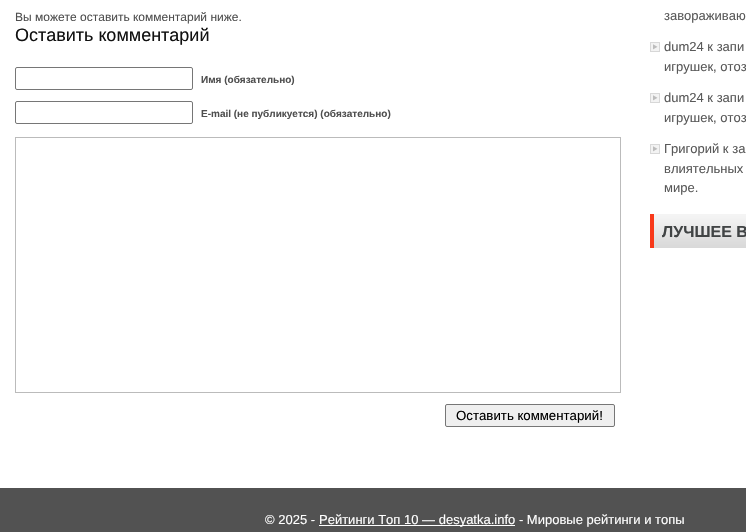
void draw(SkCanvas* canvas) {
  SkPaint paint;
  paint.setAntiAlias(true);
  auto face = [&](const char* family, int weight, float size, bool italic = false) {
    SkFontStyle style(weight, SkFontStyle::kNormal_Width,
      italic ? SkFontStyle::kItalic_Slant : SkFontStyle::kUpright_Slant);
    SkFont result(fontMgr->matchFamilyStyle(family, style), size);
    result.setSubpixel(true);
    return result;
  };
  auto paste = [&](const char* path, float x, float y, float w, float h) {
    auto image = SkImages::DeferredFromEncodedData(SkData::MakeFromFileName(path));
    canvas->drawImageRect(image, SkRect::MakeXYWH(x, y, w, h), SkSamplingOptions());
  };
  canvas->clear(0xffffffff);
  paint.setStroke(true);
  paint.setStrokeWidth(1);
  paint.setColor(0xff767676);
  canvas->drawRoundRect(SkRect::MakeXYWH(15.5f, 67.5f, 177, 22), 1.5f, 1.5f, paint);
  canvas->drawRoundRect(SkRect::MakeXYWH(15.5f, 101.5f, 177, 22), 1.5f, 1.5f, paint);
  paint.setColor(0xffbbbbbb);
  canvas->drawRect(SkRect::MakeXYWH(15.5f, 137.5f, 605, 255), paint);
  paint.setStroke(false);
  paint.setColor(0xffefefef);
  canvas->drawRoundRect(SkRect::MakeXYWH(445.5f, 404.5f, 169, 22), 1.5f, 1.5f, paint);
  paint.setStroke(true);
  paint.setColor(0xff767676);
  canvas->drawRoundRect(SkRect::MakeXYWH(445.5f, 404.5f, 169, 22), 1.5f, 1.5f, paint);
  paste("img/1.png", 650, 42, 10, 10);
  paste("img/1.png", 650, 93, 10, 10);
  paste("img/1.png", 650, 144, 10, 10);
  paste("img/2.png", 654, 214, 92, 34);
  paint.setStroke(false);
  {
    const struct { float x, y, w, h; SkColor color; } items[] = {
      {650, 214, 4, 34, 0xfff8391a},
      {0, 488, 746, 44, 0xff525252},
      {319, 525, 196, 1, 0xffffffff},
    };
    for (auto [x, y, w, h, color] : items) {
      paint.setColor(color);
      canvas->drawRect(SkRect::MakeXYWH(x, y, w, h), paint);
    }
  }
  auto f0 = face("Liberation Sans", 400, 12);
  paint.setColor(0xff4f4f4f);
  canvas->drawString("Вы можете оставить комментарий ниже.", 15, 21, f0, paint);
  auto f1 = face("Liberation Sans", 400, 18);
  paint.setColor(0xff111111);
  canvas->drawString("Оставить комментарий", 15, 41, f1, paint);
  auto f2 = face("Liberation Sans", 700, 10);
  paint.setColor(0xff4f4f4f);
  canvas->drawString("Имя (обязательно)", 201, 83, f2, paint);
  canvas->drawString("E-mail (не публикуется) (обязательно)", 201, 117, f2, paint);
  auto f3 = face("Liberation Sans", 400, 13.25f);
  paint.setColor(0xff000000);
  canvas->drawString("Оставить комментарий!", 456, 420, f3, paint);
  auto f4 = face("Liberation Sans", 400, 13);
  paint.setColor(0xff595959);
  {
    const struct { const char* s; float x, y; } items[] = {
      {"завораживаю", 664, 20},
      {"dum24 к запи", 664, 51},
      {"игрушек, отоз", 664, 71},
      {"dum24 к запи", 664, 102},
      {"игрушек, отоз", 664, 122},
      {"Григорий к за", 664, 153},
      {"влиятельных", 664, 173},
      {"мире.", 664, 192},
    };
    for (auto [s, x, y] : items) {
      canvas->drawString(s, x, y, f4, paint);
    }
  }
  auto f5 = face("Liberation Sans", 700, 16);
  paint.setColor(0xff414445);
  canvas->drawString("ЛУЧШЕЕ В", 662, 237, f5, paint);
  paint.setColor(0xffffffff);
  canvas->drawString("© 2025 -", 265, 524, f4, paint);
  canvas->drawString("Рейтинги Топ 10 — desyatka.info - Мировые рейтинги и топы", 319, 524, f4, paint);
}
